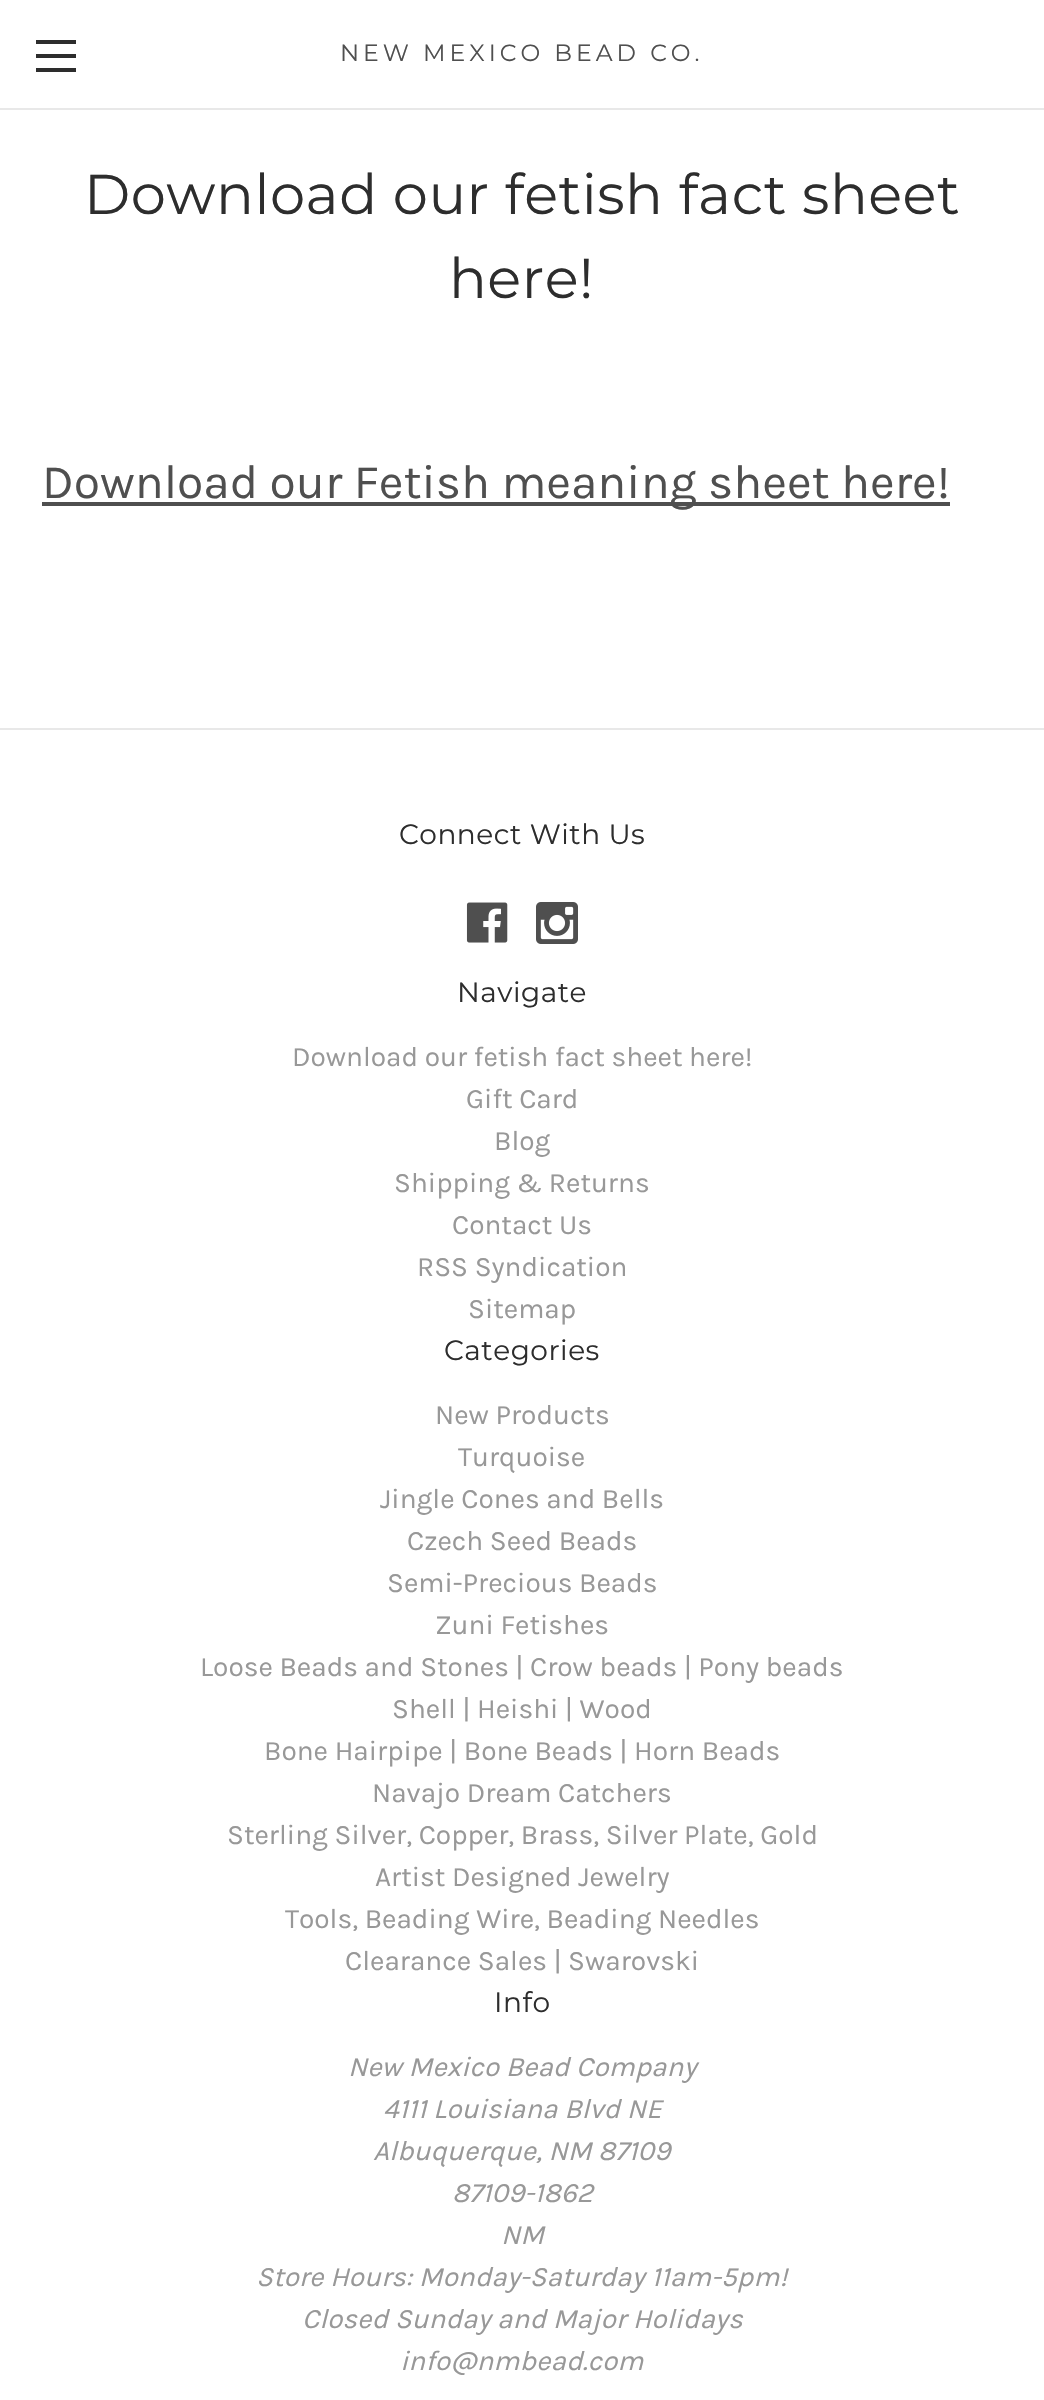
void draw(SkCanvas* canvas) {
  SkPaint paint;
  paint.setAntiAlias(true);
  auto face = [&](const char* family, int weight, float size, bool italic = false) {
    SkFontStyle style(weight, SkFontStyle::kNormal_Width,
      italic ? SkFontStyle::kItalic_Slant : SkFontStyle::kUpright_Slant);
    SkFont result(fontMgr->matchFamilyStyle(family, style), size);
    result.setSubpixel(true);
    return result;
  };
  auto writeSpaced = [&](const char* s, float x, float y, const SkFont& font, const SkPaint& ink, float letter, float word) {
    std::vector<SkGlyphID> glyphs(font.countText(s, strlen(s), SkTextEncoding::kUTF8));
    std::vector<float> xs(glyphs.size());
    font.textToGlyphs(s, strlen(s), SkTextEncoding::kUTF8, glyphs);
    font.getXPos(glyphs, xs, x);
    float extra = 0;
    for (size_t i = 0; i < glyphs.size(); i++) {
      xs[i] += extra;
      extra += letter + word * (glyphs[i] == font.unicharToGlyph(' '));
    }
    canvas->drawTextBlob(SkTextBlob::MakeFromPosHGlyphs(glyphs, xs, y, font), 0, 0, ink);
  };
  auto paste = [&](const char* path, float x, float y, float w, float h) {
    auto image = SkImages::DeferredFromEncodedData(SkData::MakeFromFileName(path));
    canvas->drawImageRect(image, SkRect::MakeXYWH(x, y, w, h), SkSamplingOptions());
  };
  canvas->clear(0xffffffff);
  {
    const struct { float x, y, w, h; SkColor color; } items[] = {
      {0, 108, 1044, 2, 0xffe8e8e8},
      {36, 54, 40, 4, 0xff2d2d2d},
      {36, 40, 40, 4, 0xff2d2d2d},
      {36, 68, 40, 4, 0xff2d2d2d},
      {42, 502, 908, 4, 0xff4f4f4f},
      {0, 728, 1044, 2, 0xffe8e8e8},
    };
    for (auto [x, y, w, h, color] : items) {
      paint.setColor(color);
      canvas->drawRect(SkRect::MakeXYWH(x, y, w, h), paint);
    }
  }
  paste("img/1.png", 466, 902, 42, 41);
  paste("img/2.png", 536, 902, 42, 42);
  auto f0 = face("Montserrat", 100, 23.5f);
  paint.setColor(0xff4f4f4f);
  writeSpaced("NEW MEXICO BEAD CO.", 340, 61, f0, paint, 4, 0);
  auto f1 = face("Montserrat", 100, 56);
  paint.setColor(0xff2d2d2d);
  writeSpaced("Download our fetish fact sheet", 84, 214, f1, paint, 0.5f, 0);
  writeSpaced("here!", 449, 298, f1, paint, 0.5f, 0);
  auto f2 = face("Karla", 400, 48);
  paint.setColor(0xff4f4f4f);
  canvas->drawString("Download our Fetish meaning sheet here!", 42, 498, f2, paint);
  auto f3 = face("Montserrat", 100, 28);
  paint.setColor(0xff2d2d2d);
  writeSpaced("Connect With Us", 399, 844, f3, paint, 0.5f, 0);
  writeSpaced("Navigate", 457, 1002, f3, paint, 0.5f, 0);
  auto f4 = face("Karla", 400, 28);
  paint.setColor(0xff989898);
  {
    const struct { const char* s; float x, y; } items[] = {
      {"Download our fetish fact sheet here!", 292, 1066},
      {"Gift Card", 466, 1108},
      {"Blog", 494, 1150},
      {"Shipping & Returns", 394, 1192},
      {"Contact Us", 452, 1234},
      {"RSS Syndication", 417, 1276},
      {"Sitemap", 468, 1318},
    };
    for (auto [s, x, y] : items) {
      canvas->drawString(s, x, y, f4, paint);
    }
  }
  paint.setColor(0xff2d2d2d);
  writeSpaced("Categories", 444, 1360, f3, paint, 0.5f, 0);
  paint.setColor(0xff989898);
  {
    const struct { const char* s; float x, y; } items[] = {
      {"New Products", 435, 1424},
      {"Turquoise", 458, 1466},
      {"Jingle Cones and Bells", 380, 1508},
      {"Czech Seed Beads", 407, 1550},
      {"Semi-Precious Beads", 387, 1592},
      {"Zuni Fetishes", 435, 1634},
      {"Loose Beads and Stones | Crow beads | Pony beads", 200, 1676},
      {"Shell | Heishi | Wood", 392, 1718},
      {"Bone Hairpipe | Bone Beads | Horn Beads", 264, 1760},
      {"Navajo Dream Catchers", 372, 1802},
      {"Sterling Silver, Copper, Brass, Silver Plate, Gold", 227, 1844},
      {"Artist Designed Jewelry", 375, 1886},
      {"Tools, Beading Wire, Beading Needles", 285, 1928},
      {"Clearance Sales | Swarovski", 345, 1970},
    };
    for (auto [s, x, y] : items) {
      canvas->drawString(s, x, y, f4, paint);
    }
  }
  paint.setColor(0xff2d2d2d);
  writeSpaced("Info", 494, 2012, f3, paint, 0.5f, 0);
  auto f5 = face("Karla", 400, 28, true);
  paint.setColor(0xff989898);
  {
    const struct { const char* s; float x, y; } items[] = {
      {"New Mexico Bead Company", 348, 2076},
      {"4111 Louisiana Blvd NE", 383, 2118},
      {"Albuquerque, NM 87109", 373, 2160},
      {"87109-1862", 452, 2202},
      {"NM", 501, 2244},
      {"Store Hours: Monday-Saturday 11am-5pm!", 256, 2286},
      {"Closed Sunday and Major Holidays", 302, 2328},
      {"info@nmbead.com", 400, 2370},
    };
    for (auto [s, x, y] : items) {
      canvas->drawString(s, x, y, f5, paint);
    }
  }
}
